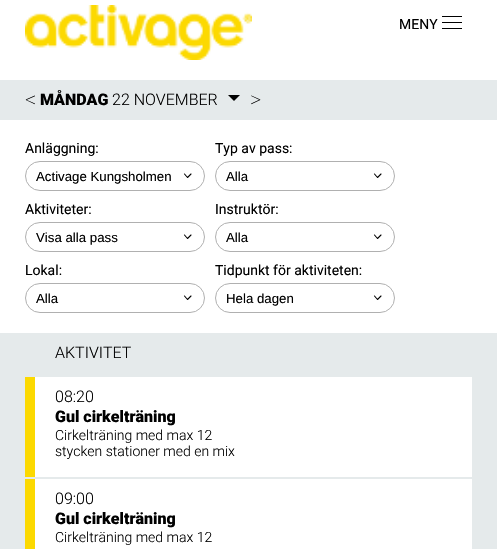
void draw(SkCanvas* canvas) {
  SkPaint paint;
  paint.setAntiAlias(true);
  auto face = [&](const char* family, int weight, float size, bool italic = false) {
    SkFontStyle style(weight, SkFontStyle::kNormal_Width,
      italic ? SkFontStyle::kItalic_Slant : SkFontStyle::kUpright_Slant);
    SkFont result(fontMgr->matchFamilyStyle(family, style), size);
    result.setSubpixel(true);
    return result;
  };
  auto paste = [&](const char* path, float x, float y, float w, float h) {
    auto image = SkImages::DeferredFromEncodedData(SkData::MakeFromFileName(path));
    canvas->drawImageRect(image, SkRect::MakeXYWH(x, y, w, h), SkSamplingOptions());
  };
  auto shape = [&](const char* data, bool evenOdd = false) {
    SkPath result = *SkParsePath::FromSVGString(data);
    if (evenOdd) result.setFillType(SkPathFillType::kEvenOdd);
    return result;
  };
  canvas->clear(0xffe5eaeb);
  paint.setColor(0xffffffff);
  canvas->drawRect(SkRect::MakeXYWH(0, 0, 497, 80), paint);
  paste("img/1.png", 25, 5, 227, 55);
  {
    const struct { float x, y, w, h; SkColor color; } items[] = {
      {442, 16, 20, 1, 0xff000000},
      {442, 22, 20, 1, 0xff000000},
      {442, 28, 20, 1, 0xff000000},
    };
    for (auto [x, y, w, h, color] : items) {
      paint.setColor(color);
      canvas->drawRect(SkRect::MakeXYWH(x, y, w, h), paint);
    }
  }
  canvas->drawPath(shape("M228 95H240L234 101Z"), paint);
  paint.setColor(0xffffffff);
  canvas->drawRect(SkRect::MakeXYWH(0, 120, 497, 213), paint);
  paint.setStroke(true);
  paint.setStrokeWidth(1.1f);
  paint.setStrokeCap(SkPaint::kRound_Cap);
  paint.setStrokeJoin(SkPaint::kRound_Join);
  paint.setColor(0xff000000);
  canvas->drawPath(shape("M184.5 174L187.5 177.5L191 174"), paint);
  paint.setStrokeWidth(1);
  paint.setStrokeCap(SkPaint::kButt_Cap);
  paint.setStrokeJoin(SkPaint::kMiter_Join);
  paint.setColor(0xffb0b0b0);
  canvas->drawRoundRect(SkRect::MakeXYWH(25.5f, 161.5f, 179, 29), 14.5f, 14.5f, paint);
  paint.setStrokeWidth(1.1f);
  paint.setStrokeCap(SkPaint::kRound_Cap);
  paint.setStrokeJoin(SkPaint::kRound_Join);
  paint.setColor(0xff000000);
  canvas->drawPath(shape("M374.5 174L377.5 177.5L381 174"), paint);
  paint.setStrokeWidth(1);
  paint.setStrokeCap(SkPaint::kButt_Cap);
  paint.setStrokeJoin(SkPaint::kMiter_Join);
  paint.setColor(0xffb0b0b0);
  canvas->drawRoundRect(SkRect::MakeXYWH(215.5f, 161.5f, 179, 29), 14.5f, 14.5f, paint);
  paint.setStrokeWidth(1.1f);
  paint.setStrokeCap(SkPaint::kRound_Cap);
  paint.setStrokeJoin(SkPaint::kRound_Join);
  paint.setColor(0xff000000);
  canvas->drawPath(shape("M184.5 235L187.5 238.5L191 235"), paint);
  paint.setStrokeWidth(1);
  paint.setStrokeCap(SkPaint::kButt_Cap);
  paint.setStrokeJoin(SkPaint::kMiter_Join);
  paint.setColor(0xffb0b0b0);
  canvas->drawRoundRect(SkRect::MakeXYWH(25.5f, 222.5f, 179, 29), 14.5f, 14.5f, paint);
  paint.setStrokeWidth(1.1f);
  paint.setStrokeCap(SkPaint::kRound_Cap);
  paint.setStrokeJoin(SkPaint::kRound_Join);
  paint.setColor(0xff000000);
  canvas->drawPath(shape("M374.5 235L377.5 238.5L381 235"), paint);
  paint.setStrokeWidth(1);
  paint.setStrokeCap(SkPaint::kButt_Cap);
  paint.setStrokeJoin(SkPaint::kMiter_Join);
  paint.setColor(0xffb0b0b0);
  canvas->drawRoundRect(SkRect::MakeXYWH(215.5f, 222.5f, 179, 29), 14.5f, 14.5f, paint);
  paint.setStrokeWidth(1.1f);
  paint.setStrokeCap(SkPaint::kRound_Cap);
  paint.setStrokeJoin(SkPaint::kRound_Join);
  paint.setColor(0xff000000);
  canvas->drawPath(shape("M184.5 296L187.5 299.5L191 296"), paint);
  paint.setStrokeWidth(1);
  paint.setStrokeCap(SkPaint::kButt_Cap);
  paint.setStrokeJoin(SkPaint::kMiter_Join);
  paint.setColor(0xffb0b0b0);
  canvas->drawRoundRect(SkRect::MakeXYWH(25.5f, 283.5f, 179, 29), 14.5f, 14.5f, paint);
  paint.setStrokeWidth(1.1f);
  paint.setStrokeCap(SkPaint::kRound_Cap);
  paint.setStrokeJoin(SkPaint::kRound_Join);
  paint.setColor(0xff000000);
  canvas->drawPath(shape("M374.5 296L377.5 299.5L381 296"), paint);
  paint.setStrokeWidth(1);
  paint.setStrokeCap(SkPaint::kButt_Cap);
  paint.setStrokeJoin(SkPaint::kMiter_Join);
  paint.setColor(0xffb0b0b0);
  canvas->drawRoundRect(SkRect::MakeXYWH(215.5f, 283.5f, 179, 29), 14.5f, 14.5f, paint);
  paint.setStroke(false);
  {
    const struct { float x, y, w, h; SkColor color; } items[] = {
      {35, 377, 437, 100, 0xffffffff},
      {25, 377, 10, 100, 0xfffcd900},
      {35, 479, 437, 70, 0xffffffff},
      {25, 479, 10, 70, 0xfffcd900},
    };
    for (auto [x, y, w, h, color] : items) {
      paint.setColor(color);
      canvas->drawRect(SkRect::MakeXYWH(x, y, w, h), paint);
    }
  }
  auto f0 = face("Roboto", 400, 14);
  paint.setColor(0xff000000);
  canvas->drawString("MENY", 399, 29, f0, paint);
  auto f1 = face("Roboto", 100, 22);
  canvas->drawString("<", 25, 107, f1, paint);
  auto f2 = face("Roboto", 900, 16);
  canvas->drawString("MÅNDAG", 40, 105, f2, paint);
  auto f3 = face("Roboto", 300, 16);
  canvas->drawString("22 NOVEMBER", 112, 105, f3, paint);
  canvas->drawString(">", 250, 107, f1, paint);
  canvas->drawString("Anläggning:", 25, 153, f0, paint);
  auto f4 = face("Liberation Sans", 400, 13.25f);
  canvas->drawString("Activage Kungsholmen", 36, 181, f4, paint);
  canvas->drawString("Typ av pass:", 215, 153, f0, paint);
  canvas->drawString("Alla", 226, 181, f4, paint);
  canvas->drawString("Aktiviteter:", 25, 214, f0, paint);
  canvas->drawString("Visa alla pass", 36, 242, f4, paint);
  canvas->drawString("Instruktör:", 215, 214, f0, paint);
  canvas->drawString("Alla", 226, 242, f4, paint);
  canvas->drawString("Lokal:", 25, 275, f0, paint);
  canvas->drawString("Alla", 36, 303, f4, paint);
  canvas->drawString("Tidpunkt för aktiviteten:", 215, 275, f0, paint);
  canvas->drawString("Hela dagen", 226, 303, f4, paint);
  canvas->drawString("AKTIVITET", 55, 358, f3, paint);
  canvas->drawString("08:20", 55, 402, f3, paint);
  canvas->drawString("Gul cirkelträning", 55, 422, f2, paint);
  auto f5 = face("Roboto", 300, 14);
  canvas->drawString("Cirkelträning med max 12", 55, 440, f5, paint);
  canvas->drawString("stycken stationer med en mix", 55, 456, f5, paint);
  canvas->drawString("09:00", 55, 504, f3, paint);
  canvas->drawString("Gul cirkelträning", 55, 524, f2, paint);
  canvas->drawString("Cirkelträning med max 12", 55, 542, f5, paint);
}
